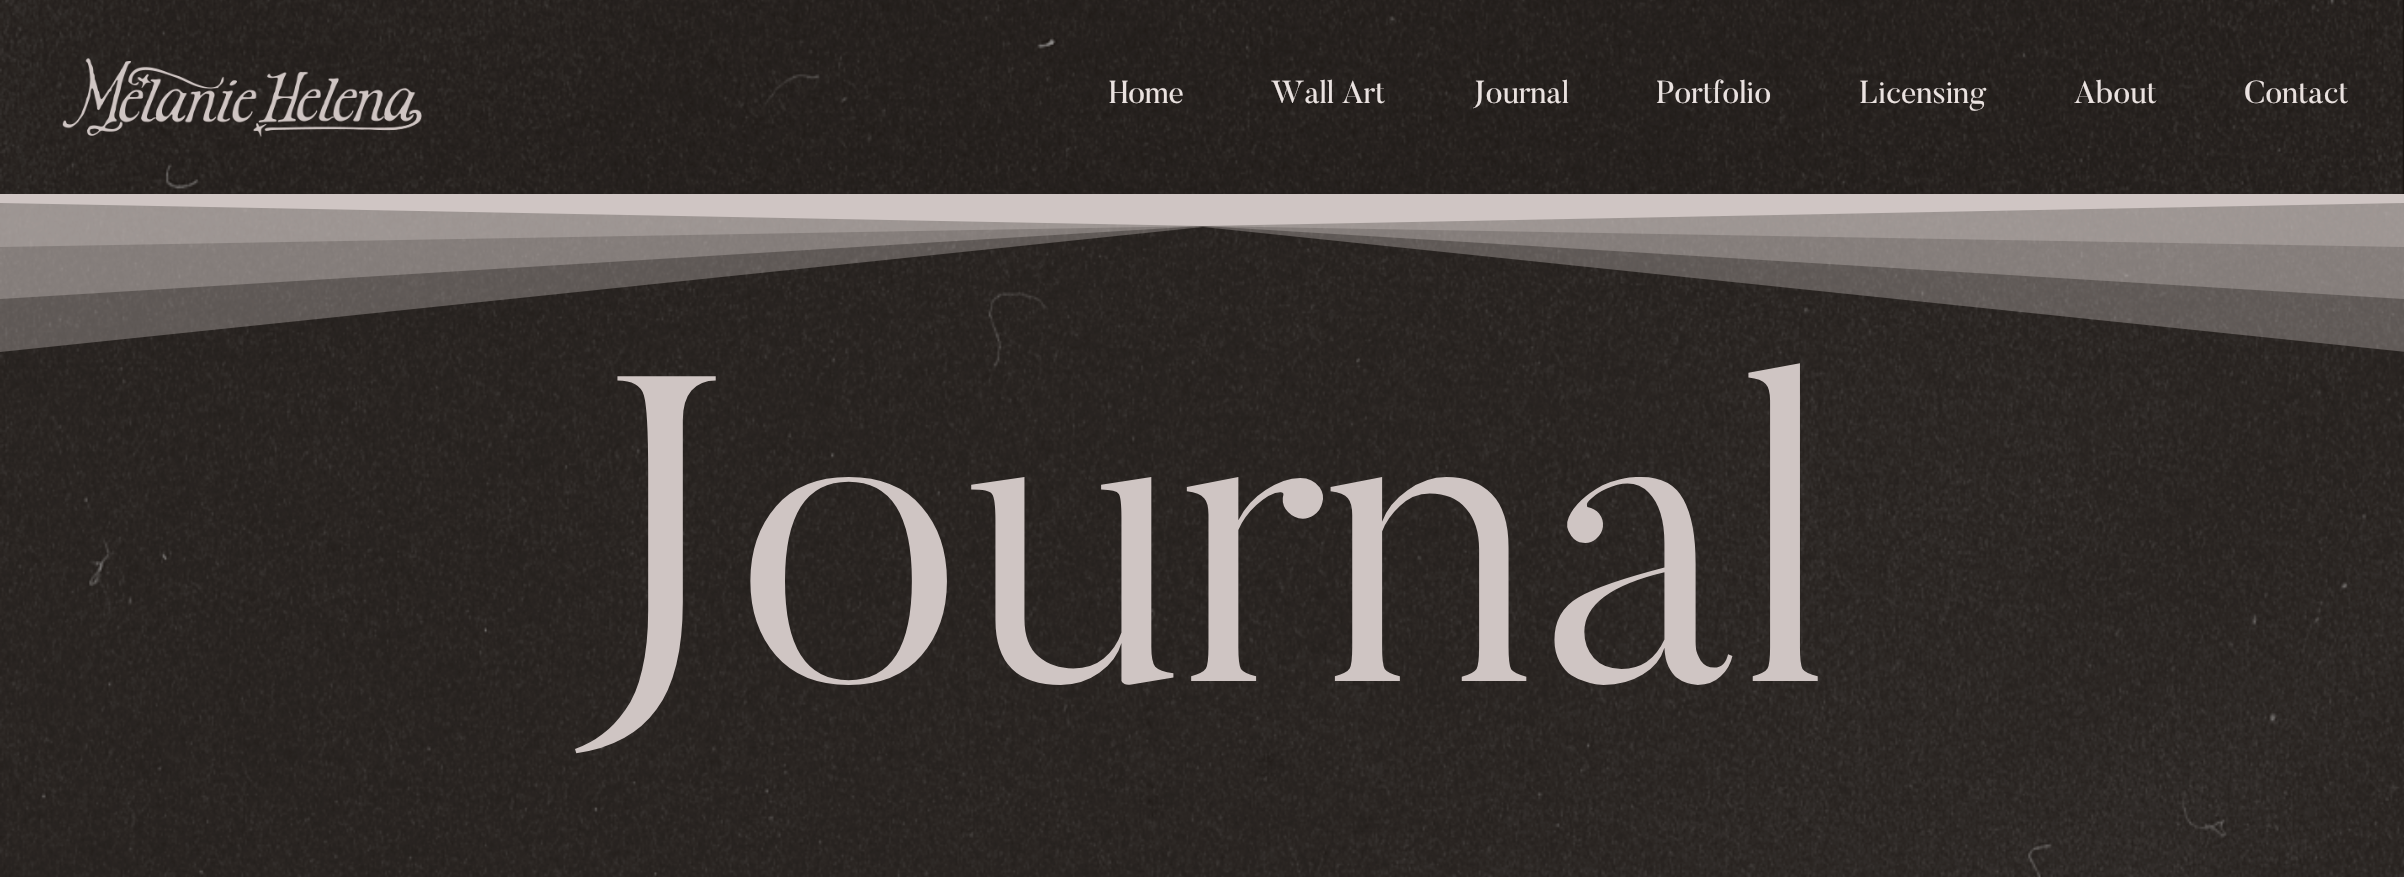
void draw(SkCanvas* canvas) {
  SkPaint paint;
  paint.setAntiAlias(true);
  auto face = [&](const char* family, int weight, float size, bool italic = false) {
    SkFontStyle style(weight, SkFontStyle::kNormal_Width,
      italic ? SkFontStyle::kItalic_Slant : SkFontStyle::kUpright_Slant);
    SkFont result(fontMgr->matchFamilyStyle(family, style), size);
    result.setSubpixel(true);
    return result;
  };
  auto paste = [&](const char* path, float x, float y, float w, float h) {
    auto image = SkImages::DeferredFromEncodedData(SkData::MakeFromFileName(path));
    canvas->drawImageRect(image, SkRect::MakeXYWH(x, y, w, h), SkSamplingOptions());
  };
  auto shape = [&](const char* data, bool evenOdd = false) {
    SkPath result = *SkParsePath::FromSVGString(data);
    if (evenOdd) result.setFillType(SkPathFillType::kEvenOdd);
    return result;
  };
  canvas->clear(0xff201b18);
  paste("img/3.png", 0, 203, 2404, 674);
  paint.setColor(0x54cfc5c3);
  canvas->drawPath(shape("M-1 192V352L1203 227L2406 352V192Z"), paint);
  canvas->drawPath(shape("M-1 192V299L1203 226L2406 299V192Z"), paint);
  canvas->drawPath(shape("M-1 192V247L1203 226L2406 247V192Z"), paint);
  paint.setColor(0xffcfc5c3);
  canvas->drawPath(shape("M-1 192V203L1203 226L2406 203V192Z"), paint);
  paint.setColor(0xff1b1613);
  canvas->drawRect(SkRect::MakeXYWH(0, 0, 2404, 194), paint);
  paste("img/1.png", 0, 0, 2403, 194);
  paste("img/2.png", 62, 58, 360, 79);
  auto f0 = face("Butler", 400, 31.5f);
  paint.setColor(0xffeae2e0);
  {
    const struct { const char* s; float x, y; } items[] = {
      {"Home", 1109, 103},
      {"Wall Art", 1271, 103},
      {"Journal", 1473, 103},
      {"Portfolio", 1656, 103},
      {"Licensing", 1859, 103},
      {"About", 2074, 103},
      {"Contact", 2244, 103},
    };
    for (auto [s, x, y] : items) {
      canvas->drawString(s, x, y, f0, paint);
    }
  }
  auto f1 = face("Butler", 300, 433);
  paint.setColor(0xffcfc5c3);
  canvas->drawString("Journal", 575, 681, f1, paint);
}
